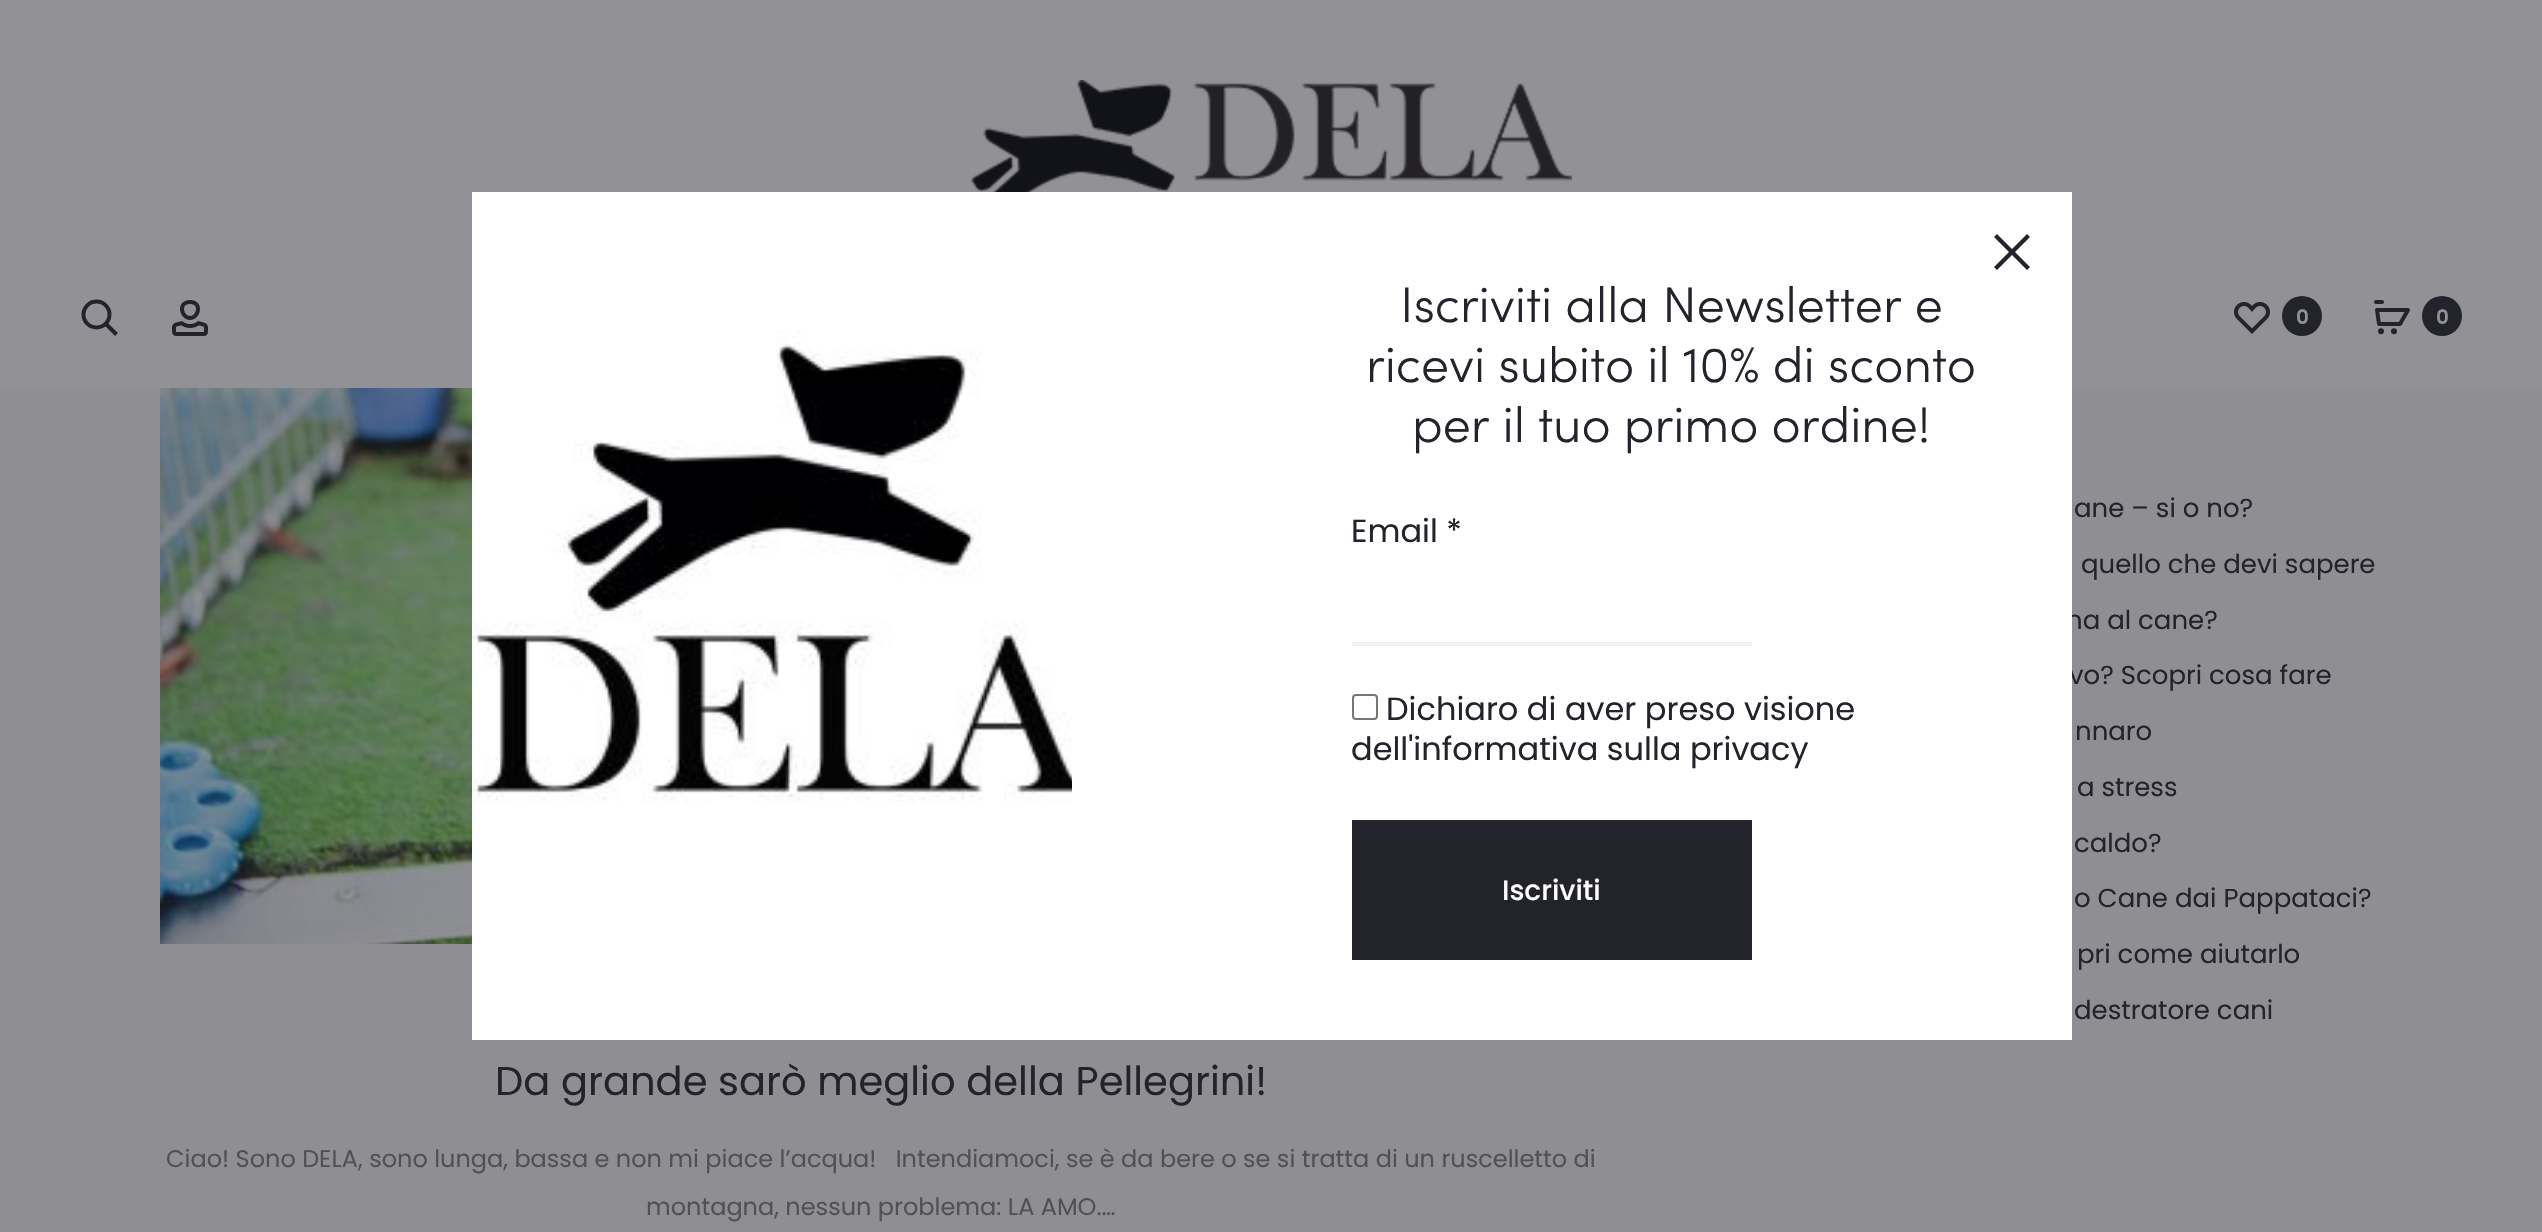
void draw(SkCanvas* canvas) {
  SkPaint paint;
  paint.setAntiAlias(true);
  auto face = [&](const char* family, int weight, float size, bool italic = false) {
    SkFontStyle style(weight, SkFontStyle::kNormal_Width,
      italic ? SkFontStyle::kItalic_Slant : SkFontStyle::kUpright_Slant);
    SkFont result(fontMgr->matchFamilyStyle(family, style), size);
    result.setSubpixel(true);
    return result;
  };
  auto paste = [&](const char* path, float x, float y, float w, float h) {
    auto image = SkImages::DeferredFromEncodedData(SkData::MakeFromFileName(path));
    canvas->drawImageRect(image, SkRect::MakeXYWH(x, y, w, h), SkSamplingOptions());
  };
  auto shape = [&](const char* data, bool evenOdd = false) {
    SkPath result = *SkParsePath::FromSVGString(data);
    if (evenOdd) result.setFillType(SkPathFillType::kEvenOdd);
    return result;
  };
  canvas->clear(0xff8f8f93);
  paint.setColor(0xff919196);
  canvas->drawRect(SkRect::MakeXYWH(0, 0, 2542, 388), paint);
  paste("img/2.png", 971, 80, 601, 112);
  paint.setStroke(true);
  paint.setStrokeWidth(4);
  paint.setColor(0xff23232c);
  canvas->drawCircle(96.5f, 314.5f, 13, paint);
  canvas->drawPath(shape("M106 324L116.5 334.5"), paint);
  paste("img/3.png", 172, 300, 36, 36);
  paste("img/4.png", 2234, 302, 36, 32);
  paint.setStroke(false);
  canvas->drawCircle(2302, 316, 20, paint);
  paint.setStroke(true);
  paint.setStrokeJoin(SkPaint::kRound_Join);
  canvas->drawPath(shape("M2377 310L2379 324H2400L2408 310Z"), paint);
  paint.setStroke(false);
  canvas->drawCircle(2381, 331.2f, 3, paint);
  canvas->drawCircle(2394, 331.2f, 3, paint);
  paint.setStroke(true);
  paint.setStrokeCap(SkPaint::kRound_Cap);
  paint.setStrokeJoin(SkPaint::kMiter_Join);
  canvas->drawPath(shape("M2376 302H2382"), paint);
  paint.setStroke(false);
  canvas->drawCircle(2442, 316, 20, paint);
  paste("img/5.png", 160, 388, 312, 556);
  auto f0 = face("Poppins", 600, 20);
  paint.setColor(0xff919196);
  canvas->drawString("0", 2296, 324, f0, paint);
  canvas->drawString("0", 2436, 324, f0, paint);
  auto f1 = face("Poppins", 400, 26);
  paint.setColor(0xff23232c);
  {
    const struct { const char* s; float x, y; } items[] = {
      {"ane – si o no?", 2074, 517},
      {"quello che devi sapere", 2081, 573},
      {"na al cane?", 2066, 629},
      {"vo? Scopri cosa fare", 2069, 684},
    };
    for (auto [s, x, y] : items) {
      canvas->drawString(s, x, y, f1, paint);
    }
  }
  paint.setColor(0xffffffff);
  canvas->drawRect(SkRect::MakeXYWH(472, 192, 1600, 848), paint);
  paint.setColor(0xff23232c);
  canvas->drawRect(SkRect::MakeXYWH(1352, 820, 400, 140), paint);
  auto f2 = face("Poppins", 500, 28);
  paint.setColor(0xffffffff);
  canvas->drawString("Iscriviti", 1502, 900, f2, paint);
  paint.setColor(0xff23232c);
  canvas->drawPath(shape("M2030 237L2027 234L2012 249L1997 234L1994 237L2009 252L1994 267L1997 270L2012 255L2027 270L2030 267L2015 252Z"), paint);
  auto f3 = face("Poppins", 400, 32);
  canvas->drawString("dell'informativa sulla privacy", 1351, 760, f3, paint);
  canvas->drawString("Dichiaro di aver preso visione", 1386, 720, f3, paint);
  paint.setStroke(true);
  paint.setStrokeWidth(2);
  paint.setStrokeCap(SkPaint::kButt_Cap);
  paint.setColor(0xff767676);
  canvas->drawRoundRect(SkRect::MakeXYWH(1353, 695, 24, 24), 3, 3, paint);
  paint.setStroke(false);
  paint.setColor(0xff23232c);
  canvas->drawString("Email *", 1351, 542, f3, paint);
  auto f4 = face("Sofia", 300, 50);
  {
    const struct { const char* s; float x, y; } items[] = {
      {"per il tuo primo ordine!", 1412, 442},
      {"ricevi subito il 10% di sconto", 1366, 382},
      {"Iscriviti alla Newsletter e", 1400, 322},
    };
    for (auto [s, x, y] : items) {
      canvas->drawString(s, x, y, f4, paint);
    }
  }
  paint.setColor(0xfff1f2f4);
  canvas->drawRect(SkRect::MakeXYWH(1352, 642, 400, 4), paint);
  paste("img/1.png", 472, 329, 600, 474);
  paint.setColor(0xff23232c);
  {
    const struct { const char* s; float x, y; } items[] = {
      {"nnaro", 2075, 740},
      {"a stress", 2077, 796},
      {"caldo?", 2074, 852},
      {"o Cane dai Pappataci?", 2074, 907},
      {"pri come aiutarlo", 2077, 963},
      {"destratore cani", 2074, 1019},
    };
    for (auto [s, x, y] : items) {
      canvas->drawString(s, x, y, f1, paint);
    }
  }
  auto f5 = face("Poppins", 400, 40);
  canvas->drawString("Da grande sarò meglio della Pellegrini!", 495, 1095, f5, paint);
  auto f6 = face("Poppins", 400, 24);
  paint.setColor(0xff505056);
  canvas->drawString("Ciao! Sono DELA, sono lunga, bassa e non mi piace l’acqua!   Intendiamoci, se è da bere o se si tratta di un ruscelletto di", 166, 1167, f6, paint);
  canvas->drawString("montagna, nessun problema: LA AMO.…", 646, 1215, f6, paint);
}
